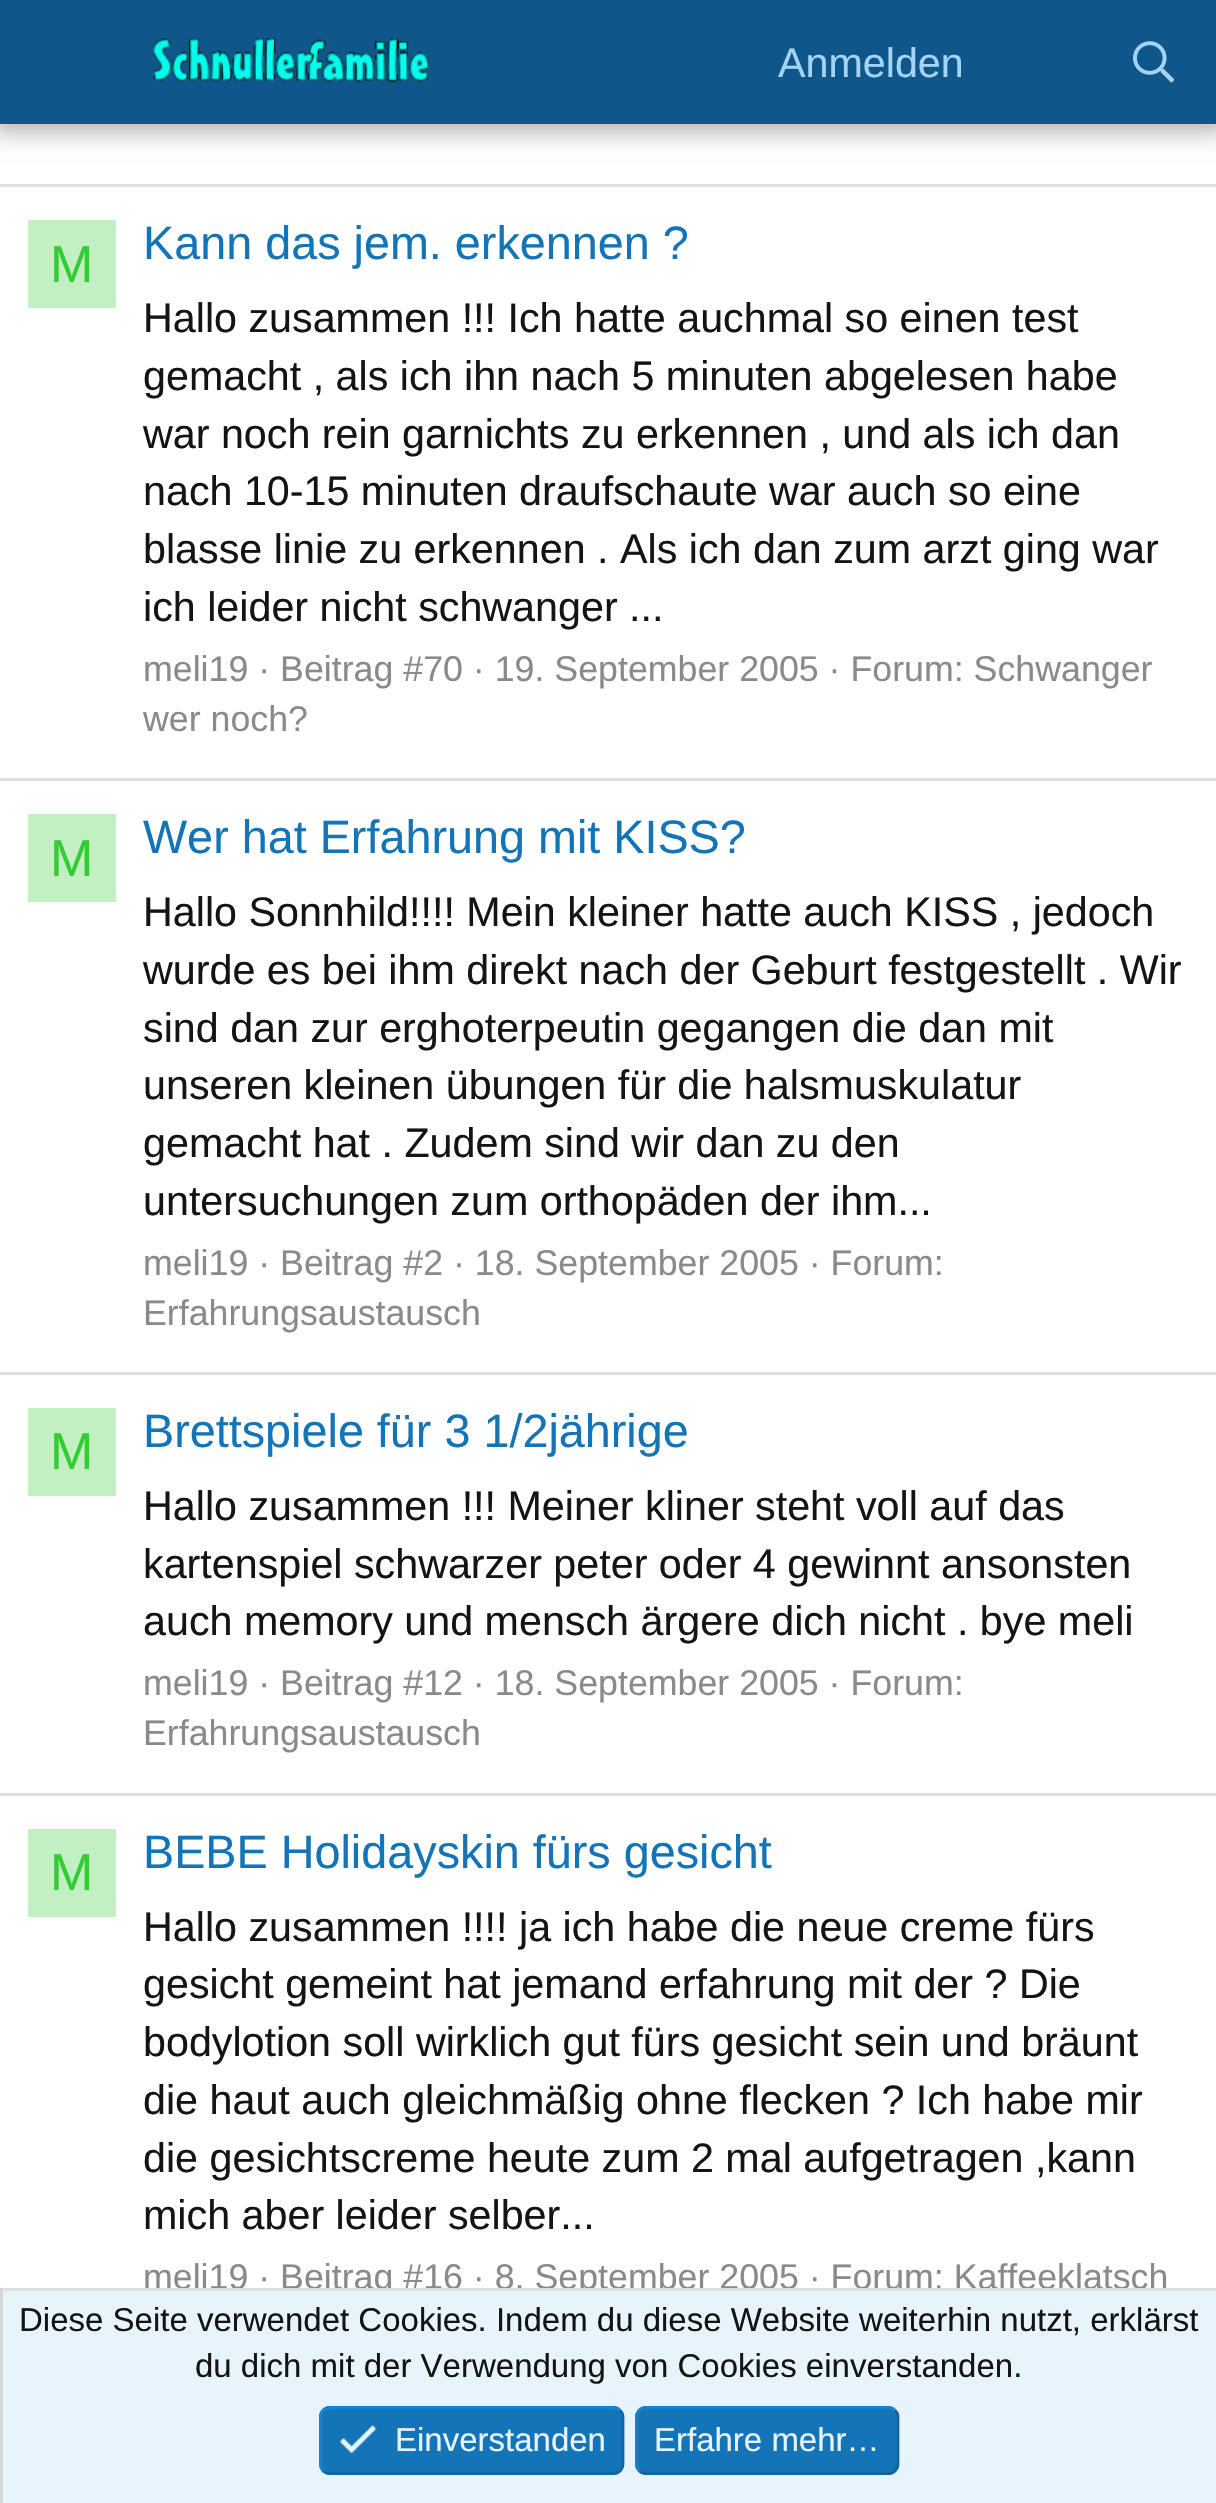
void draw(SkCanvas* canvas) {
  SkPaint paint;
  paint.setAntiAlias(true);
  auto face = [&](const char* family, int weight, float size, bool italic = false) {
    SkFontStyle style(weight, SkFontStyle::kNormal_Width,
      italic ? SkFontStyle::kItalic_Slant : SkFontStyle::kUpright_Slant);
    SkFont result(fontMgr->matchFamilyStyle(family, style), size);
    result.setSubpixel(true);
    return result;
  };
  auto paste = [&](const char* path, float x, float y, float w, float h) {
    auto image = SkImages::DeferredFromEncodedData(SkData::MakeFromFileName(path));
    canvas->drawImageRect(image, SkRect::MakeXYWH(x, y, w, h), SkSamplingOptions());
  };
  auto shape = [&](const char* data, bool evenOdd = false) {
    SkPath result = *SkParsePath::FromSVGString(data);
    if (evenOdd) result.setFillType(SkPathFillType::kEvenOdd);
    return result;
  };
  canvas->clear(0xffffffff);
  paint.setColor(0x4d000000);
  paint.setMaskFilter(SkMaskFilter::MakeBlur(kNormal_SkBlurStyle, 11));
  canvas->drawRect(SkRect::MakeXYWH(-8, -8, 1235, 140), paint);
  paint.setMaskFilter(nullptr);
  paint.setColor(0xff0f578a);
  canvas->drawRect(SkRect::MakeXYWH(0, 0, 1216, 124), paint);
  paste("img/1.png", 153, 37, 276, 46);
  paste("img/2.png", 1133, 41, 41, 42);
  {
    const struct { float x, y, w, h; SkColor color; } items[] = {
      {0, 184, 1216, 3, 0xffe0e0e0},
      {28, 220, 88, 88, 0xffc2f0c2},
      {0, 778, 1216, 3, 0xffe0e0e0},
      {28, 814, 88, 88, 0xffc2f0c2},
      {0, 1372, 1216, 3, 0xffe0e0e0},
      {28, 1408, 88, 88, 0xffc2f0c2},
      {0, 1793, 1216, 3, 0xffe0e0e0},
      {28, 1829, 88, 88, 0xffc2f0c2},
    };
    for (auto [x, y, w, h, color] : items) {
      paint.setColor(color);
      canvas->drawRect(SkRect::MakeXYWH(x, y, w, h), paint);
    }
  }
  auto f0 = face("Liberation Sans", 400, 41.25f);
  paint.setColor(0xffa3d4f5);
  canvas->drawString("Anmelden", 778, 77, f0, paint);
  auto f1 = face("Liberation Sans", 400, 52);
  paint.setColor(0xff33cc33);
  canvas->drawString("M", 50, 282, f1, paint);
  auto f2 = face("Liberation Sans", 400, 46.75f);
  paint.setColor(0xff1474b8);
  canvas->drawString("Kann das jem. erkennen ?", 143, 259, f2, paint);
  paint.setColor(0xff141414);
  {
    const struct { const char* s; float x, y; } items[] = {
      {"Hallo zusammen !!! Ich hatte auchmal so einen test", 143, 332},
      {"gemacht , als ich ihn nach 5 minuten abgelesen habe", 143, 390},
      {"war noch rein garnichts zu erkennen , und als ich dan", 143, 448},
      {"nach 10-15 minuten draufschaute war auch so eine", 143, 505},
      {"blasse linie zu erkennen . Als ich dan zum arzt ging war", 143, 563},
      {"ich leider nicht schwanger ...", 143, 621},
    };
    for (auto [s, x, y] : items) {
      canvas->drawString(s, x, y, f0, paint);
    }
  }
  auto f3 = face("Liberation Sans", 400, 35.75f);
  paint.setColor(0xff8a8a8a);
  canvas->drawString("meli19 · Beitrag #70 · 19. September 2005 · Forum: Schwanger", 143, 681, f3, paint);
  canvas->drawString("wer noch?", 143, 731, f3, paint);
  paint.setColor(0xff33cc33);
  canvas->drawString("M", 50, 876, f1, paint);
  paint.setColor(0xff1474b8);
  canvas->drawString("Wer hat Erfahrung mit KISS?", 143, 853, f2, paint);
  paint.setColor(0xff141414);
  {
    const struct { const char* s; float x, y; } items[] = {
      {"Hallo Sonnhild!!!! Mein kleiner hatte auch KISS , jedoch", 143, 926},
      {"wurde es bei ihm direkt nach der Geburt festgestellt . Wir", 143, 984},
      {"sind dan zur erghoterpeutin gegangen die dan mit", 143, 1042},
      {"unseren kleinen übungen für die halsmuskulatur", 143, 1099},
      {"gemacht hat . Zudem sind wir dan zu den", 143, 1157},
      {"untersuchungen zum orthopäden der ihm...", 143, 1215},
    };
    for (auto [s, x, y] : items) {
      canvas->drawString(s, x, y, f0, paint);
    }
  }
  paint.setColor(0xff8a8a8a);
  canvas->drawString("meli19 · Beitrag #2 · 18. September 2005 · Forum:", 143, 1275, f3, paint);
  canvas->drawString("Erfahrungsaustausch", 143, 1325, f3, paint);
  paint.setColor(0xff33cc33);
  canvas->drawString("M", 50, 1469, f1, paint);
  paint.setColor(0xff1474b8);
  canvas->drawString("Brettspiele für 3 1/2jährige", 143, 1447, f2, paint);
  paint.setColor(0xff141414);
  {
    const struct { const char* s; float x, y; } items[] = {
      {"Hallo zusammen !!! Meiner kliner steht voll auf das", 143, 1520},
      {"kartenspiel schwarzer peter oder 4 gewinnt ansonsten", 143, 1578},
      {"auch memory und mensch ärgere dich nicht . bye meli", 143, 1635},
    };
    for (auto [s, x, y] : items) {
      canvas->drawString(s, x, y, f0, paint);
    }
  }
  paint.setColor(0xff8a8a8a);
  canvas->drawString("meli19 · Beitrag #12 · 18. September 2005 · Forum:", 143, 1695, f3, paint);
  canvas->drawString("Erfahrungsaustausch", 143, 1745, f3, paint);
  paint.setColor(0xff33cc33);
  canvas->drawString("M", 50, 1890, f1, paint);
  paint.setColor(0xff1474b8);
  canvas->drawString("BEBE Holidayskin fürs gesicht", 143, 1868, f2, paint);
  paint.setColor(0xff141414);
  {
    const struct { const char* s; float x, y; } items[] = {
      {"Hallo zusammen !!!! ja ich habe die neue creme fürs", 143, 1941},
      {"gesicht gemeint hat jemand erfahrung mit der ? Die", 143, 1998},
      {"bodylotion soll wirklich gut fürs gesicht sein und bräunt", 143, 2056},
      {"die haut auch gleichmäßig ohne flecken ? Ich habe mir", 143, 2114},
      {"die gesichtscreme heute zum 2 mal aufgetragen ,kann", 143, 2172},
      {"mich aber leider selber...", 143, 2229},
    };
    for (auto [s, x, y] : items) {
      canvas->drawString(s, x, y, f0, paint);
    }
  }
  paint.setColor(0xff8a8a8a);
  canvas->drawString("meli19 · Beitrag #16 · 8. September 2005 · Forum: Kaffeeklatsch", 143, 2289, f3, paint);
  {
    const struct { float x, y, w, h; SkColor color; } items[] = {
      {3, 2291, 1213, 212, 0xffe8f4fc},
      {0, 2288, 1216, 3, 0xffe0e0e0},
      {0, 2288, 3, 215, 0xffd6d6d6},
    };
    for (auto [x, y, w, h, color] : items) {
      paint.setColor(color);
      canvas->drawRect(SkRect::MakeXYWH(x, y, w, h), paint);
    }
  }
  auto f4 = face("Liberation Sans", 400, 33);
  paint.setColor(0xff141414);
  canvas->drawString("Diese Seite verwendet Cookies. Indem du diese Website weiterhin nutzt, erklärst", 19, 2331, f4, paint);
  canvas->drawString("du dich mit der Verwendung von Cookies einverstanden.", 195, 2377, f4, paint);
  paint.setColor(0xff1474b8);
  canvas->drawRoundRect(SkRect::MakeXYWH(319, 2406, 305, 69), 11, 11, paint);
  paint.setStroke(true);
  paint.setStrokeWidth(2.8f);
  paint.setColor(0xff1265a1);
  canvas->drawPath(shape("M620 2410.5C622 2412 623 2414.5 623 2417V2464C623 2466.5 622 2469 620 2471C618.5 2472.5 616 2473.5 613 2473.5H330C327.5 2473.5 325 2472.5 323 2471"), paint);
  paint.setColor(0xff1782cf);
  canvas->drawPath(shape("M323 2471C321.5 2469 320.5 2466.5 320.5 2464V2417C320.5 2414.5 321.5 2412 323 2410.5C325 2408.5 327.5 2407.5 330 2407.5H613C616 2407.5 618.5 2408.5 620 2410.5"), paint);
  paste("img/3.png", 340, 2425, 37, 29);
  paint.setStroke(false);
  paint.setColor(0xffe8f4fc);
  canvas->drawString("Einverstanden", 395, 2451, f4, paint);
  paint.setColor(0xff1474b8);
  canvas->drawRoundRect(SkRect::MakeXYWH(635, 2406, 264, 69), 11, 11, paint);
  paint.setStroke(true);
  paint.setColor(0xff1265a1);
  canvas->drawPath(shape("M895 2410.5C897 2412 898 2414.5 898 2417V2464C898 2466.5 897 2469 895 2471C893.5 2472.5 891 2473.5 888 2473.5H646C643.5 2473.5 641 2472.5 639.5 2471"), paint);
  paint.setColor(0xff1782cf);
  canvas->drawPath(shape("M639.5 2471C637.5 2469 636.5 2466.5 636.5 2464V2417C636.5 2414.5 637.5 2412 639.5 2410.5C641 2408.5 643.5 2407.5 646 2407.5H888C891 2407.5 893.5 2408.5 895 2410.5"), paint);
  paint.setStroke(false);
  paint.setColor(0xffe8f4fc);
  canvas->drawString("Erfahre mehr…", 654, 2451, f4, paint);
}
